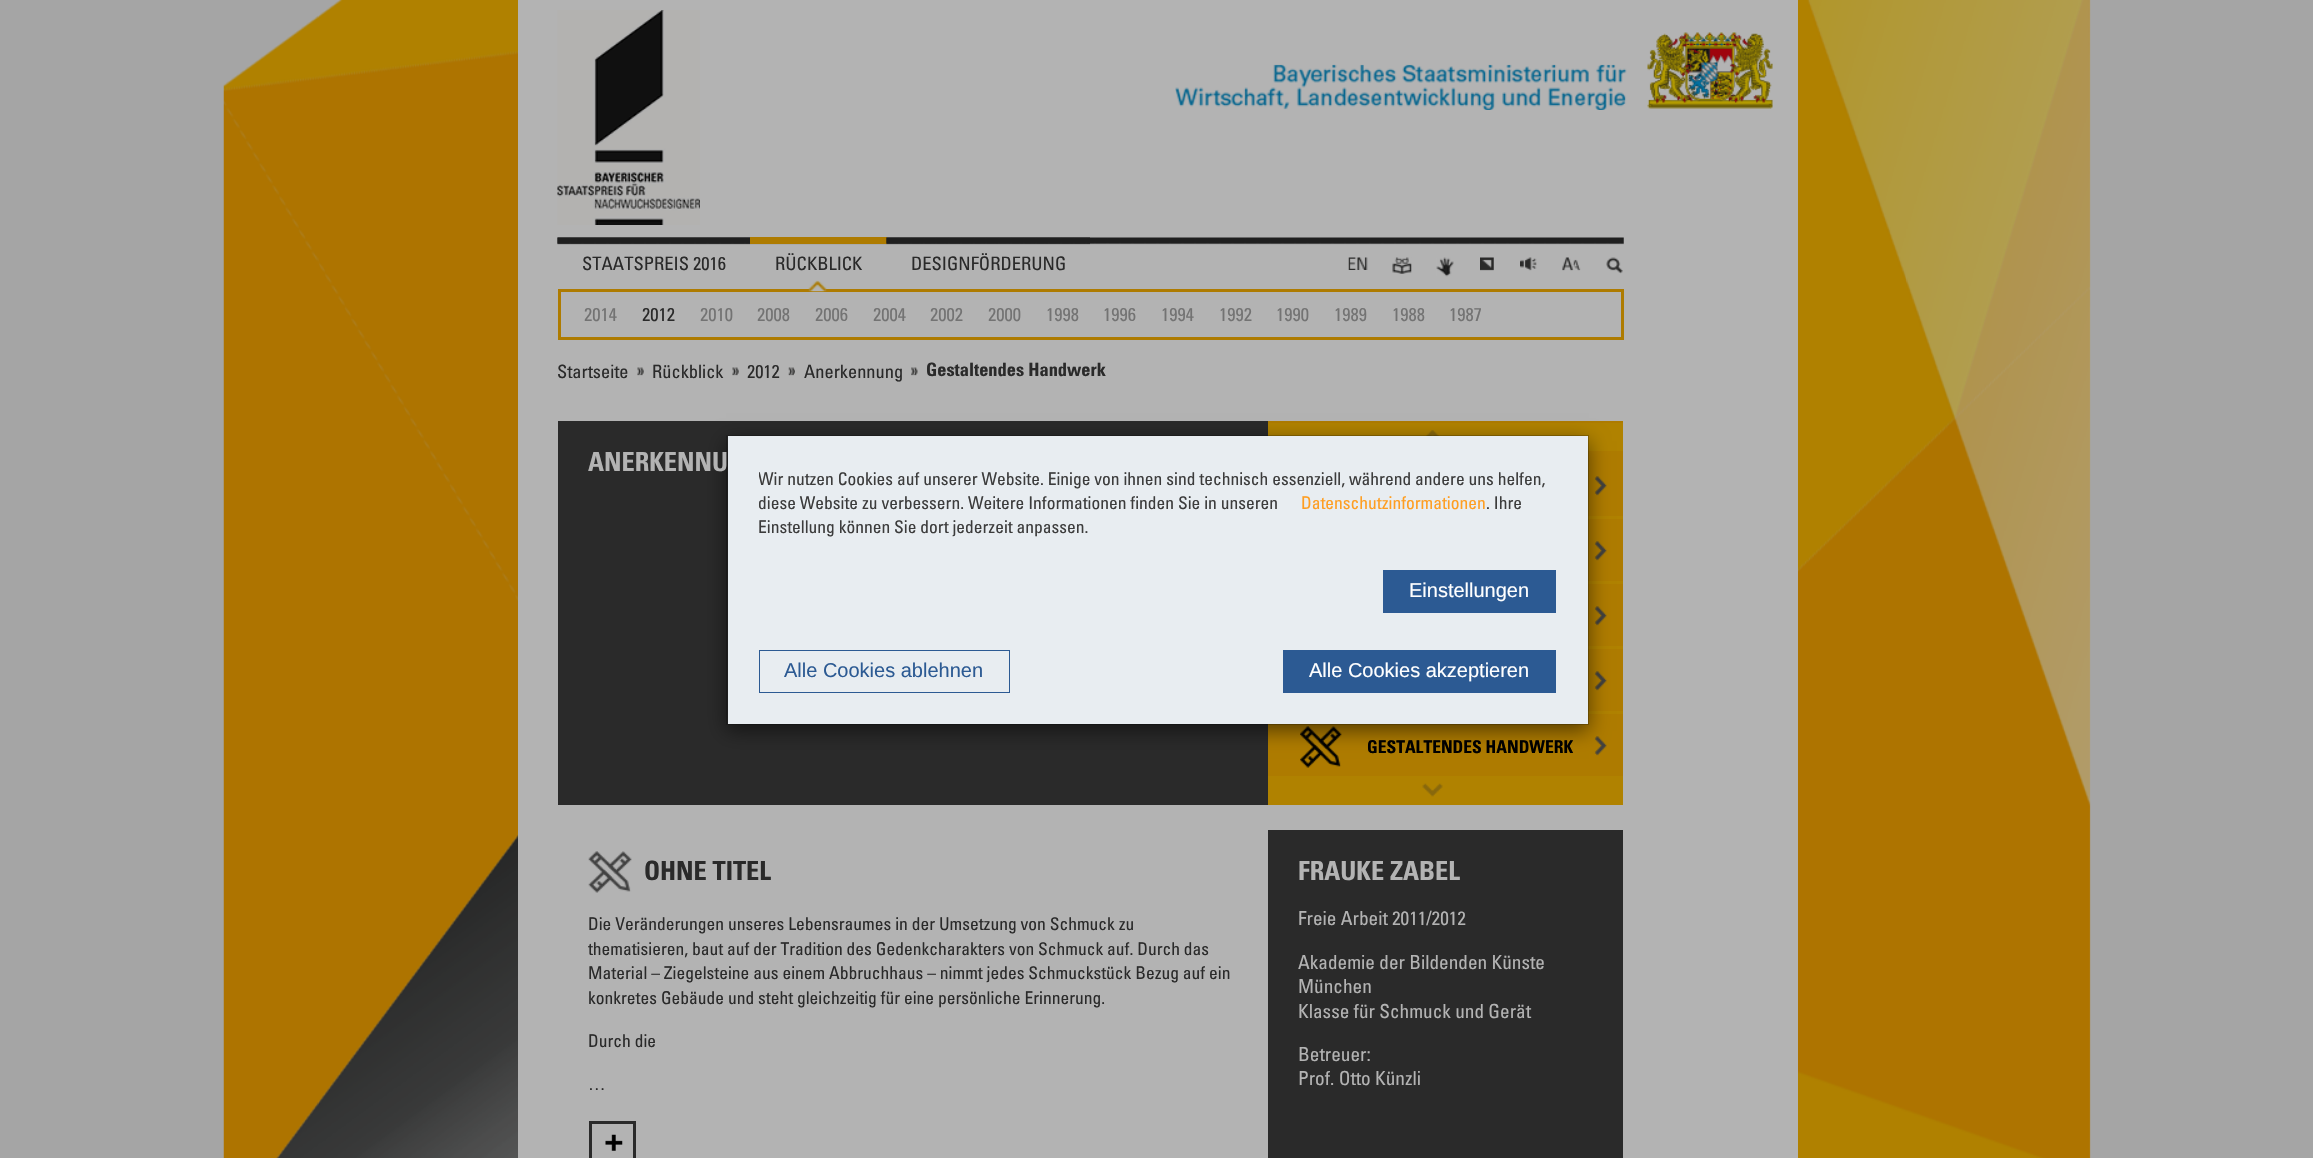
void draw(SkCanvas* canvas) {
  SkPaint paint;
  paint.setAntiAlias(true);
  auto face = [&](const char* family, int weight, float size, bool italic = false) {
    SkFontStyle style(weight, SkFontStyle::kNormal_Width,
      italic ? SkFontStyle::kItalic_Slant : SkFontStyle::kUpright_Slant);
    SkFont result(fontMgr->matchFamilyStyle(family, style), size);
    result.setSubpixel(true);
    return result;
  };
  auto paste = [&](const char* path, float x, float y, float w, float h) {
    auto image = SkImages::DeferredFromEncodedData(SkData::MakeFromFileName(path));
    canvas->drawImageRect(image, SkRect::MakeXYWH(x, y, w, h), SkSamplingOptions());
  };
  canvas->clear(0xffa5a5a5);
  paste("img/1.png", 223, 0, 1868, 1158);
  paint.setColor(0xffb3b3b3);
  canvas->drawRect(SkRect::MakeXYWH(518, 0, 1280, 1158), paint);
  paste("img/2.png", 557, 10, 143, 215);
  paste("img/3.png", 1175, 64, 452, 46);
  paste("img/4.png", 1647, 32, 126, 77);
  paste("img/5.png", 557, 237, 1067, 8);
  paint.setColor(0xffae7b00);
  canvas->drawRect(SkRect::MakeXYWH(750, 237, 137, 7), paint);
  paint.setStroke(true);
  paint.setStrokeWidth(3);
  canvas->drawRect(SkRect::MakeXYWH(559.5f, 290.5f, 1063, 48), paint);
  paste("img/6.png", 808, 280, 19, 12);
  paste("img/7.png", 557, 237, 193, 8);
  paste("img/8.png", 886, 237, 204, 8);
  paste("img/9.png", 1348, 257, 20, 13);
  paste("img/10.png", 1392, 257, 20, 17);
  paste("img/11.png", 1436, 257, 18, 20);
  paste("img/12.png", 1480, 257, 14, 14);
  paste("img/13.png", 1520, 257, 17, 14);
  paste("img/14.png", 1562, 257, 19, 14);
  paste("img/15.png", 1606, 257, 17, 17);
  paste("img/16.png", 637, 367, 7, 9);
  paste("img/16.png", 732, 367, 7, 9);
  paste("img/17.png", 788, 367, 7, 9);
  paste("img/18.png", 911, 367, 7, 9);
  paint.setStroke(false);
  {
    const struct { float x, y, w, h; SkColor color; } items[] = {
      {558, 421, 710, 384, 0xff2a2a2a},
      {1268, 421, 355, 355, 0xffae7b00},
      {1268, 423, 355, 28, 0xffb08200},
    };
    for (auto [x, y, w, h, color] : items) {
      paint.setColor(color);
      canvas->drawRect(SkRect::MakeXYWH(x, y, w, h), paint);
    }
  }
  paste("img/19.png", 1426, 430, 13, 6);
  canvas->drawRect(SkRect::MakeXYWH(1268, 776, 355, 29), paint);
  paste("img/20.png", 1422, 783, 21, 14);
  canvas->drawRect(SkRect::MakeXYWH(1588, 516, 35, 3), paint);
  paste("img/21.png", 1594, 476, 13, 20);
  canvas->drawRect(SkRect::MakeXYWH(1588, 581, 35, 3), paint);
  paste("img/21.png", 1594, 541, 13, 20);
  canvas->drawRect(SkRect::MakeXYWH(1588, 646, 35, 3), paint);
  paste("img/21.png", 1594, 606, 13, 20);
  canvas->drawRect(SkRect::MakeXYWH(1588, 711, 35, 3), paint);
  paste("img/21.png", 1594, 671, 13, 20);
  paste("img/22.png", 1300, 726, 42, 42);
  paste("img/21.png", 1594, 736, 13, 20);
  paste("img/23.png", 588, 851, 44, 42);
  paste("img/24.png", 605, 1134, 18, 17);
  paint.setStroke(true);
  paint.setColor(0xff2a2a2a);
  canvas->drawRect(SkRect::MakeXYWH(590.5f, 1122.5f, 44, 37), paint);
  paint.setStroke(false);
  canvas->drawRect(SkRect::MakeXYWH(1268, 830, 355, 328), paint);
  paint.setColor(0x80000000);
  paint.setMaskFilter(SkMaskFilter::MakeBlur(kNormal_SkBlurStyle, 9.5f));
  canvas->drawRect(SkRect::MakeXYWH(726, 441, 863, 290), paint);
  paint.setMaskFilter(nullptr);
  paint.setColor(0xffe8edf1);
  canvas->drawRect(SkRect::MakeXYWH(728, 436, 860, 288), paint);
  auto f0 = face("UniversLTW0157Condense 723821", 400, 18.5f);
  paint.setColor(0xff2a2a2a);
  canvas->drawString("RÜCKBLICK", 775, 270, f0, paint);
  paint.setColor(0xff737373);
  canvas->drawString("2014", 584, 321, f0, paint);
  paint.setColor(0xff2a2a2a);
  canvas->drawString("2012", 642, 321, f0, paint);
  paint.setColor(0xff737373);
  {
    const struct { const char* s; float x, y; } items[] = {
      {"2010", 700, 321},
      {"2008", 757, 321},
      {"2006", 815, 321},
      {"2004", 873, 321},
      {"2002", 930, 321},
      {"2000", 988, 321},
      {"1998", 1046, 321},
      {"1996", 1103, 321},
      {"1994", 1161, 321},
      {"1992", 1219, 321},
      {"1990", 1276, 321},
      {"1989", 1334, 321},
      {"1988", 1392, 321},
      {"1987", 1449, 321},
    };
    for (auto [s, x, y] : items) {
      canvas->drawString(s, x, y, f0, paint);
    }
  }
  paint.setColor(0xff2a2a2a);
  canvas->drawString("STAATSPREIS 2016", 582, 270, f0, paint);
  canvas->drawString("DESIGNFÖRDERUNG", 911, 270, f0, paint);
  auto f1 = face("UniversLTW0157Condense 723821", 400, 18.4f);
  {
    const struct { const char* s; float x, y; } items[] = {
      {"Startseite", 557, 378},
      {"Rückblick", 652, 378},
      {"2012", 747, 378},
      {"Anerkennung", 804, 378},
    };
    for (auto [s, x, y] : items) {
      canvas->drawString(s, x, y, f1, paint);
    }
  }
  auto f2 = face("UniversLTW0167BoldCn", 700, 18.4f);
  canvas->drawString("Gestaltendes Handwerk", 926, 376, f2, paint);
  auto f3 = face("UniversLTW0167BoldCn", 700, 26.25f);
  paint.setColor(0xffb3b3b3);
  canvas->drawString("ANERKENNU", 588, 471, f3, paint);
  auto f4 = face("UniversLTW0167BoldCn", 700, 17.5f);
  paint.setColor(0xff000000);
  canvas->drawString("GESTALTENDES HANDWERK", 1367, 753, f4, paint);
  paint.setColor(0xff2a2a2a);
  canvas->drawString("OHNE TITEL", 644, 880, f3, paint);
  auto f5 = face("UniversLTW0157Condense 723821", 400, 17.5f);
  {
    const struct { const char* s; float x, y; } items[] = {
      {"Die Veränderungen unseres Lebensraumes in der Umsetzung von Schmuck zu", 588, 930},
      {"thematisieren, baut auf der Tradition des Gedenkcharakters von Schmuck auf. Durch das", 588, 955},
      {"Material – Ziegelsteine aus einem Abbruchhaus – nimmt jedes Schmuckstück Bezug auf ein", 588, 979},
      {"konkretes Gebäude und steht gleichzeitig für eine persönliche Erinnerung.", 588, 1004},
      {"Durch die", 588, 1047},
      {"…", 588, 1090},
    };
    for (auto [s, x, y] : items) {
      canvas->drawString(s, x, y, f5, paint);
    }
  }
  paint.setColor(0xffb3b3b3);
  canvas->drawString("FRAUKE ZABEL", 1298, 880, f3, paint);
  auto f6 = face("UniversLTW0157Condense 723821", 400, 19.25f);
  {
    const struct { const char* s; float x, y; } items[] = {
      {"Freie Arbeit 2011/2012", 1298, 925},
      {"Akademie der Bildenden Künste", 1298, 969},
      {"München", 1298, 993},
      {"Klasse für Schmuck und Gerät", 1298, 1018},
      {"Betreuer:", 1298, 1061},
      {"Prof. Otto Künzli", 1298, 1085},
    };
    for (auto [s, x, y] : items) {
      canvas->drawString(s, x, y, f6, paint);
    }
  }
  paint.setStroke(true);
  paint.setStrokeWidth(1);
  paint.setColor(0x33000000);
  canvas->drawRect(SkRect::MakeXYWH(726.5f, 435.5f, 862, 289), paint);
  canvas->save();
  canvas->clipRect(SkRect::MakeXYWH(759, 468, 797, 90));
  paint.setStroke(false);
  paint.setColor(0xff3c3c3c);
  canvas->drawString("Wir nutzen Cookies auf unserer Website. Einige von ihnen sind technisch essenziell, während andere uns helfen,", 758, 485, f5, paint);
  canvas->restore();
  canvas->drawString("diese Website zu verbessern. Weitere Informationen finden Sie in unseren", 758, 509, f5, paint);
  paint.setColor(0xffff9e21);
  canvas->drawString("Datenschutzinformationen", 1301, 509, f5, paint);
  paint.setColor(0xff3c3c3c);
  canvas->drawString(". Ihre", 1486, 509, f5, paint);
  canvas->drawString("Einstellung können Sie dort jederzeit anpassen.", 758, 533, f5, paint);
  paint.setColor(0xff2c5a93);
  canvas->drawRect(SkRect::MakeXYWH(1383, 570, 173, 43), paint);
  auto f7 = face("Liberation Sans", 400, 20);
  paint.setColor(0xffffffff);
  canvas->drawString("Einstellungen", 1409, 597, f7, paint);
  paint.setStroke(true);
  paint.setColor(0xff2c5a93);
  canvas->drawRect(SkRect::MakeXYWH(759.5f, 650.5f, 250, 42), paint);
  paint.setStroke(false);
  canvas->drawString("Alle Cookies ablehnen", 784, 677, f7, paint);
  canvas->drawRect(SkRect::MakeXYWH(1283, 650, 273, 43), paint);
  paint.setColor(0xffffffff);
  canvas->drawString("Alle Cookies akzeptieren", 1309, 677, f7, paint);
}
